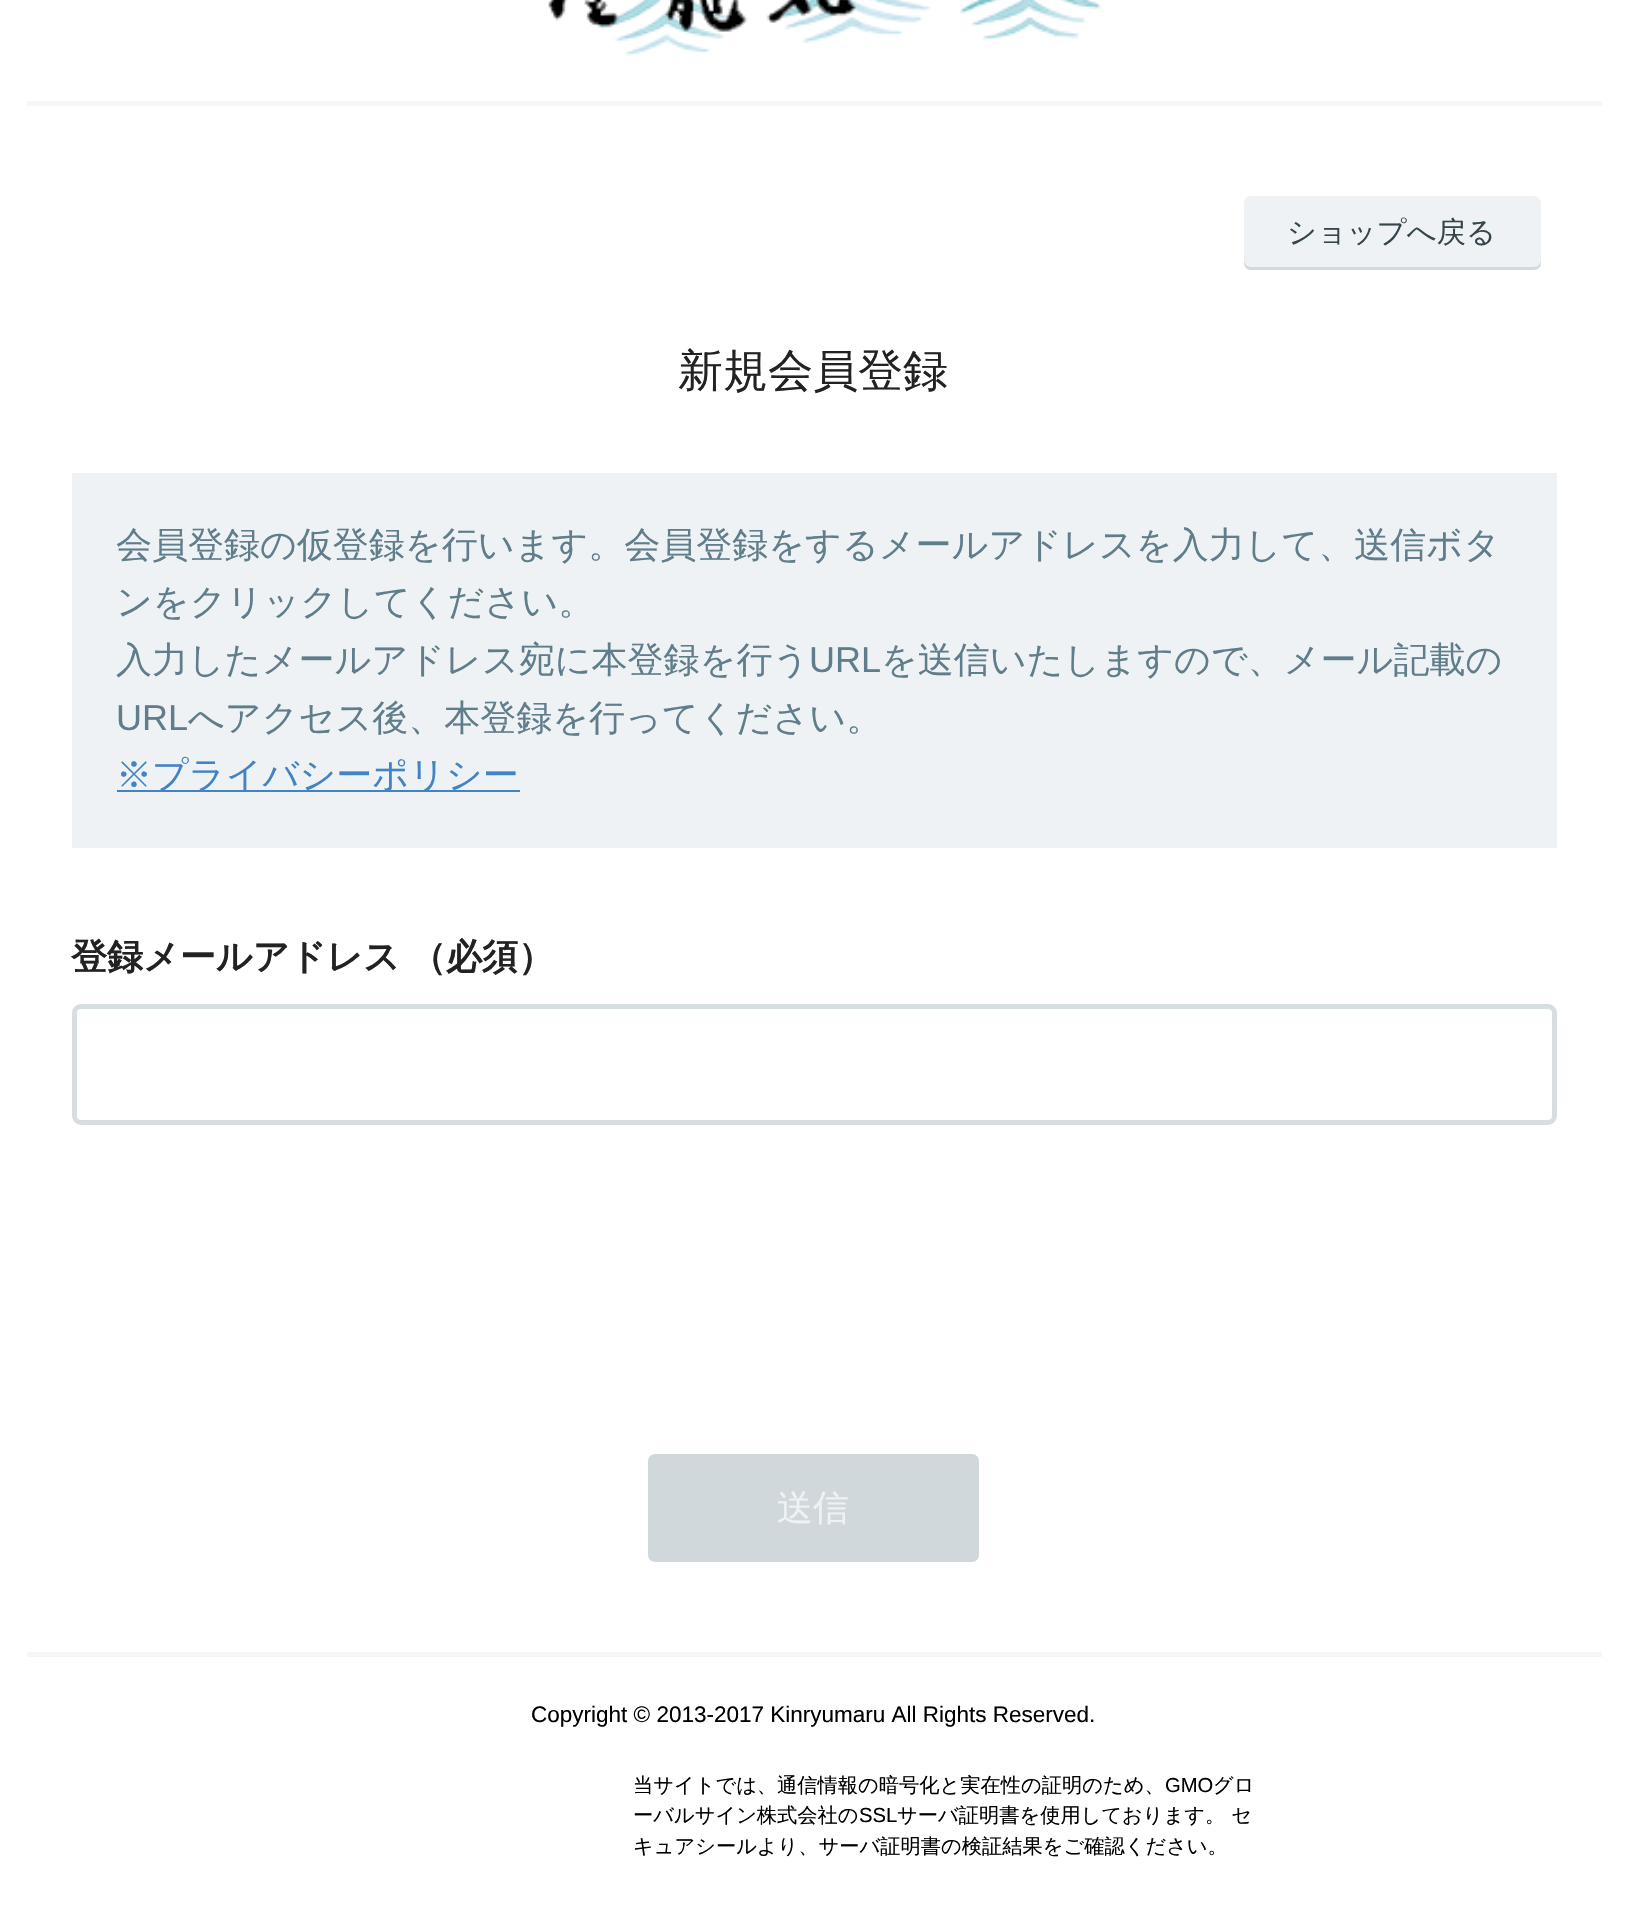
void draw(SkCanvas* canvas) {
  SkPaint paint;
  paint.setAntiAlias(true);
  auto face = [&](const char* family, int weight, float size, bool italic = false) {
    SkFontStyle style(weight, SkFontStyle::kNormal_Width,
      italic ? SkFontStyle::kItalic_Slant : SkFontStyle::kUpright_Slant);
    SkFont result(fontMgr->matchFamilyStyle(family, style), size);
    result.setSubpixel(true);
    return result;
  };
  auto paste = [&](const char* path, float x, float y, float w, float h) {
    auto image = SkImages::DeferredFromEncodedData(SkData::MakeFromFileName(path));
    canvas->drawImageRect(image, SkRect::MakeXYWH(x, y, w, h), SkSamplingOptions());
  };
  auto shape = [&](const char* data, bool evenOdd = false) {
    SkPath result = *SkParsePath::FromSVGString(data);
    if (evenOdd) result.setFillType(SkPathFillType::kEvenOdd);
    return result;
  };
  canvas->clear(0xffffffff);
  paste("img/1.png", 548, 0, 553, 56);
  paint.setColor(0xfff6f6f6);
  canvas->drawRect(SkRect::MakeXYWH(27, 101, 1575, 5), paint);
  canvas->drawRect(SkRect::MakeXYWH(27, 1652, 1575, 5), paint);
  paint.setColor(0xffeff2f4);
  canvas->drawRoundRect(SkRect::MakeXYWH(1244, 196, 297, 74), 7, 7, paint);
  paint.setColor(0x1a000000);
  canvas->drawPath(shape("M1244 260V263C1244 267 1247 270 1251 270H1534C1538 270 1541 267 1541 263V260C1541 264 1538 267 1534 267H1251C1247 267 1244 264 1244 260Z"), paint);
  paint.setColor(0xffeff2f4);
  canvas->drawRect(SkRect::MakeXYWH(72, 473, 1485, 375), paint);
  paint.setColor(0xff4183c4);
  canvas->drawRect(SkRect::MakeXYWH(117, 790, 403, 2), paint);
  paint.setStroke(true);
  paint.setStrokeWidth(5);
  paint.setColor(0xffd7dee2);
  canvas->drawRoundRect(SkRect::MakeXYWH(74.5f, 1006.5f, 1480, 116), 6.5f, 6.5f, paint);
  paint.setStroke(false);
  paint.setColor(0xffd0d8dc);
  canvas->drawRoundRect(SkRect::MakeXYWH(648, 1454, 331, 108), 7, 7, paint);
  auto f0 = face("WenQuanYi Zen Hei", 500, 29.25f);
  paint.setColor(0xff35454c);
  canvas->drawString("ショップへ戻る", 1287, 242, f0, paint);
  auto f1 = face("WenQuanYi Zen Hei", 500, 45);
  paint.setColor(0xff222222);
  canvas->drawString("新規会員登録", 678, 386, f1, paint);
  auto f2 = face("WenQuanYi Zen Hei", 500, 36);
  paint.setColor(0xff607d8b);
  {
    const struct { const char* s; float x, y; } items[] = {
      {"会員登録の仮登録を行います。会員登録をするメールアドレスを入力して、送信ボタ", 116, 557},
      {"ンをクリックしてください。", 116, 614},
      {"入力したメールアドレス宛に本登録を行う", 116, 672},
    };
    for (auto [s, x, y] : items) {
      canvas->drawString(s, x, y, f2, paint);
    }
  }
  auto f3 = face("Liberation Sans", 400, 36);
  canvas->drawString("URL", 809, 672, f3, paint);
  canvas->drawString("を送信いたしますので、メール記載の", 881, 672, f2, paint);
  canvas->drawString("URL", 116, 730, f3, paint);
  canvas->drawString("へアクセス後、本登録を行ってください。", 188, 730, f2, paint);
  paint.setColor(0xff4183c4);
  canvas->drawString("※プライバシーポリシー", 116, 787, f2, paint);
  auto f4 = face("WenQuanYi Zen Hei", 700, 36);
  paint.setColor(0xff222222);
  canvas->drawString("登録メールアドレス", 71, 969, f4, paint);
  canvas->drawString("（必須）", 410, 969, f4, paint);
  paint.setColor(0xffeff2f4);
  canvas->drawString("送信", 777, 1520, f2, paint);
  auto f5 = face("Liberation Sans", 400, 22.5f);
  paint.setColor(0xff000000);
  canvas->drawString("Copyright © 2013-2017 Kinryumaru All Rights Reserved.", 531, 1722, f5, paint);
  auto f6 = face("WenQuanYi Zen Hei", 500, 20.25f);
  canvas->drawString("当サイトでは、通信情報の暗号化と実在性の証明のため、", 633, 1792, f6, paint);
  auto f7 = face("Liberation Sans", 400, 20.25f);
  canvas->drawString("GMO", 1165, 1792, f7, paint);
  canvas->drawString("グロ", 1213, 1792, f6, paint);
  canvas->drawString("ーバルサイン株式会社の", 633, 1822, f6, paint);
  canvas->drawString("SSL", 859, 1822, f7, paint);
  canvas->drawString("サーバ証明書を使用しております。 セ", 897, 1822, f6, paint);
  canvas->drawString("キュアシールより、サーバ証明書の検証結果をご確認ください。", 633, 1853, f6, paint);
}
